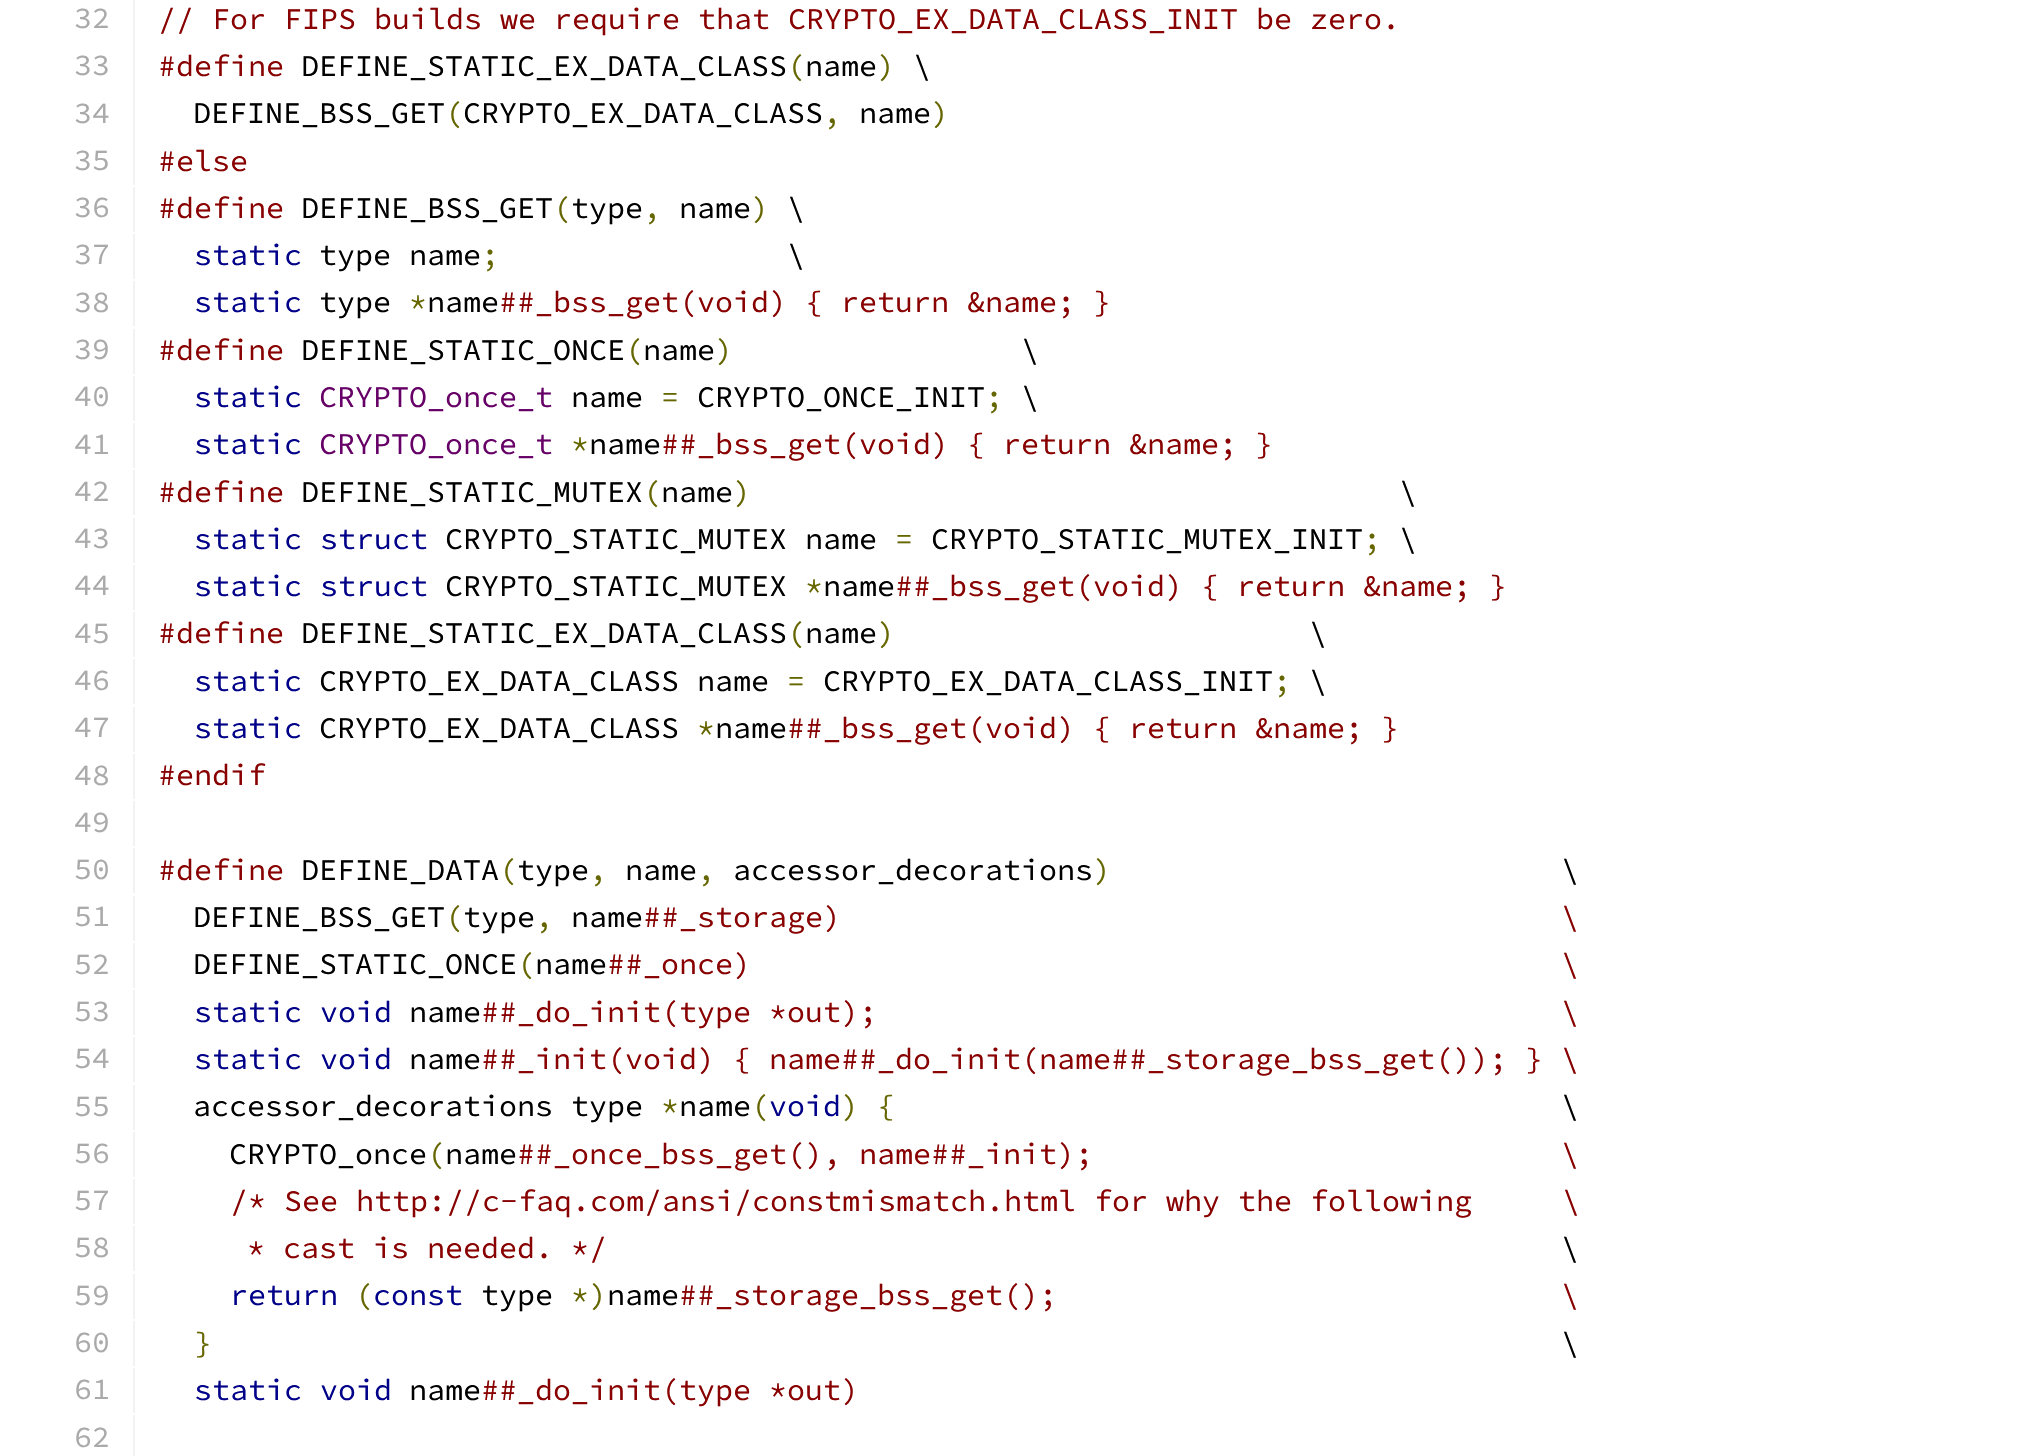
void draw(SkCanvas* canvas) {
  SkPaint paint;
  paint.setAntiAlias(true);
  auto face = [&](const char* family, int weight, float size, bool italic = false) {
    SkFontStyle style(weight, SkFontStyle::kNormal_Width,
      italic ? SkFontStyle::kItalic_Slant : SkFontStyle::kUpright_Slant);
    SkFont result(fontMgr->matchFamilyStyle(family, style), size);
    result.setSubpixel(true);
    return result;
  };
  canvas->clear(0xffffffff);
  {
    const struct { float x, y, w, h; SkColor color; } items[] = {
      {133, 0, 2, 185, 0xfff1f2f3},
      {133, 187, 2, 45, 0xfff1f2f3},
      {133, 234, 2, 45, 0xfff1f2f3},
      {133, 281, 2, 45, 0xfff1f2f3},
      {133, 329, 2, 45, 0xfff1f2f3},
      {133, 376, 2, 45, 0xfff1f2f3},
      {133, 423, 2, 45, 0xfff1f2f3},
      {133, 470, 2, 45, 0xfff1f2f3},
      {133, 518, 2, 45, 0xfff1f2f3},
      {133, 565, 2, 45, 0xfff1f2f3},
      {133, 612, 2, 45, 0xfff1f2f3},
      {133, 659, 2, 45, 0xfff1f2f3},
      {133, 707, 2, 45, 0xfff1f2f3},
      {133, 754, 2, 45, 0xfff1f2f3},
      {133, 801, 2, 45, 0xfff1f2f3},
      {133, 848, 2, 45, 0xfff1f2f3},
      {133, 896, 2, 45, 0xfff1f2f3},
      {133, 943, 2, 45, 0xfff1f2f3},
      {133, 990, 2, 45, 0xfff1f2f3},
      {133, 1037, 2, 45, 0xfff1f2f3},
      {133, 1085, 2, 45, 0xfff1f2f3},
      {133, 1132, 2, 45, 0xfff1f2f3},
      {133, 1179, 2, 45, 0xfff1f2f3},
      {133, 1226, 2, 45, 0xfff1f2f3},
      {133, 1274, 2, 45, 0xfff1f2f3},
      {133, 1321, 2, 45, 0xfff1f2f3},
      {133, 1368, 2, 45, 0xfff1f2f3},
      {133, 1415, 2, 41, 0xfff1f2f3},
    };
    for (auto [x, y, w, h, color] : items) {
      paint.setColor(color);
      canvas->drawRect(SkRect::MakeXYWH(x, y, w, h), paint);
    }
  }
  auto f0 = face("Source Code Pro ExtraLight", 200, 30);
  paint.setColor(0xffaaaaaa);
  canvas->drawString("32", 74, 28, f0, paint);
  paint.setColor(0xff880000);
  canvas->drawString("// For FIPS builds we require that CRYPTO_EX_DATA_CLASS_INIT be zero.", 158, 29, f0, paint);
  paint.setColor(0xffaaaaaa);
  canvas->drawString("33", 74, 75, f0, paint);
  paint.setColor(0xff880000);
  canvas->drawString("#define", 158, 76, f0, paint);
  paint.setColor(0xff666600);
  canvas->drawString(")", 877, 76, f0, paint);
  paint.setColor(0xff000000);
  canvas->drawString("\\", 913, 76, f0, paint);
  canvas->drawString("DEFINE_STATIC_EX_DATA_CLASS name", 301, 76, f0, paint);
  paint.setColor(0xff666600);
  canvas->drawString("(", 787, 76, f0, paint);
  paint.setColor(0xffaaaaaa);
  canvas->drawString("34", 74, 123, f0, paint);
  paint.setColor(0xff666600);
  canvas->drawString(")", 931, 123, f0, paint);
  paint.setColor(0xff000000);
  canvas->drawString("DEFINE_BSS_GET CRYPTO_EX_DATA_CLASS", 193, 123, f0, paint);
  paint.setColor(0xff666600);
  canvas->drawString("(", 445, 123, f0, paint);
  canvas->drawString(",", 823, 123, f0, paint);
  paint.setColor(0xff000000);
  canvas->drawString("name", 859, 123, f0, paint);
  paint.setColor(0xffaaaaaa);
  canvas->drawString("35", 74, 170, f0, paint);
  paint.setColor(0xff880000);
  canvas->drawString("#else", 158, 171, f0, paint);
  paint.setColor(0xffaaaaaa);
  canvas->drawString("36", 74, 217, f0, paint);
  paint.setColor(0xff880000);
  canvas->drawString("#define", 158, 218, f0, paint);
  paint.setColor(0xff666600);
  canvas->drawString(")", 751, 218, f0, paint);
  paint.setColor(0xff000000);
  canvas->drawString("\\", 787, 218, f0, paint);
  canvas->drawString("DEFINE_BSS_GET type", 301, 218, f0, paint);
  paint.setColor(0xff666600);
  canvas->drawString("(", 553, 218, f0, paint);
  canvas->drawString(",", 643, 218, f0, paint);
  paint.setColor(0xff000000);
  canvas->drawString("name", 679, 218, f0, paint);
  paint.setColor(0xffaaaaaa);
  canvas->drawString("37", 74, 264, f0, paint);
  paint.setColor(0xff000088);
  canvas->drawString("static", 194, 265, f0, paint);
  paint.setColor(0xff000000);
  canvas->drawString("type name", 319, 265, f0, paint);
  paint.setColor(0xff666600);
  canvas->drawString(";", 481, 265, f0, paint);
  paint.setColor(0xff000000);
  canvas->drawString("\\", 787, 265, f0, paint);
  paint.setColor(0xffaaaaaa);
  canvas->drawString("38", 74, 312, f0, paint);
  paint.setColor(0xff000088);
  canvas->drawString("static", 194, 312, f0, paint);
  paint.setColor(0xff000000);
  canvas->drawString("type", 319, 312, f0, paint);
  paint.setColor(0xff666600);
  canvas->drawString("*", 409, 312, f0, paint);
  paint.setColor(0xff000000);
  canvas->drawString("name", 427, 312, f0, paint);
  paint.setColor(0xff880000);
  canvas->drawString("##_bss_get(void) { return &name; }", 499, 312, f0, paint);
  paint.setColor(0xffaaaaaa);
  canvas->drawString("39", 74, 359, f0, paint);
  paint.setColor(0xff880000);
  canvas->drawString("#define", 158, 360, f0, paint);
  paint.setColor(0xff666600);
  canvas->drawString(")", 715, 360, f0, paint);
  paint.setColor(0xff000000);
  canvas->drawString("\\", 1021, 360, f0, paint);
  canvas->drawString("DEFINE_STATIC_ONCE name", 301, 360, f0, paint);
  paint.setColor(0xff666600);
  canvas->drawString("(", 625, 360, f0, paint);
  paint.setColor(0xffaaaaaa);
  canvas->drawString("40", 74, 406, f0, paint);
  paint.setColor(0xff000088);
  canvas->drawString("static", 194, 407, f0, paint);
  paint.setColor(0xff660066);
  canvas->drawString("CRYPTO_once_t", 319, 407, f0, paint);
  paint.setColor(0xff000000);
  canvas->drawString("name", 571, 407, f0, paint);
  paint.setColor(0xff666600);
  canvas->drawString("=", 661, 407, f0, paint);
  paint.setColor(0xff000000);
  canvas->drawString("CRYPTO_ONCE_INIT", 697, 407, f0, paint);
  paint.setColor(0xff666600);
  canvas->drawString(";", 985, 407, f0, paint);
  paint.setColor(0xff000000);
  canvas->drawString("\\", 1021, 407, f0, paint);
  paint.setColor(0xffaaaaaa);
  canvas->drawString("41", 74, 454, f0, paint);
  paint.setColor(0xff000088);
  canvas->drawString("static", 194, 454, f0, paint);
  paint.setColor(0xff660066);
  canvas->drawString("CRYPTO_once_t", 319, 454, f0, paint);
  paint.setColor(0xff666600);
  canvas->drawString("*", 571, 454, f0, paint);
  paint.setColor(0xff000000);
  canvas->drawString("name", 589, 454, f0, paint);
  paint.setColor(0xff880000);
  canvas->drawString("##_bss_get(void) { return &name; }", 661, 454, f0, paint);
  paint.setColor(0xffaaaaaa);
  canvas->drawString("42", 74, 501, f0, paint);
  paint.setColor(0xff880000);
  canvas->drawString("#define", 158, 502, f0, paint);
  paint.setColor(0xff666600);
  canvas->drawString(")", 733, 502, f0, paint);
  paint.setColor(0xff000000);
  canvas->drawString("\\", 1399, 502, f0, paint);
  canvas->drawString("DEFINE_STATIC_MUTEX name", 301, 502, f0, paint);
  paint.setColor(0xff666600);
  canvas->drawString("(", 643, 502, f0, paint);
  paint.setColor(0xffaaaaaa);
  canvas->drawString("43", 74, 548, f0, paint);
  paint.setColor(0xff000088);
  canvas->drawString("static struct", 194, 549, f0, paint);
  paint.setColor(0xff000000);
  canvas->drawString("CRYPTO_STATIC_MUTEX name", 445, 549, f0, paint);
  paint.setColor(0xff666600);
  canvas->drawString("=", 895, 549, f0, paint);
  paint.setColor(0xff000000);
  canvas->drawString("CRYPTO_STATIC_MUTEX_INIT", 931, 549, f0, paint);
  paint.setColor(0xff666600);
  canvas->drawString(";", 1363, 549, f0, paint);
  paint.setColor(0xff000000);
  canvas->drawString("\\", 1399, 549, f0, paint);
  paint.setColor(0xffaaaaaa);
  canvas->drawString("44", 74, 595, f0, paint);
  paint.setColor(0xff000088);
  canvas->drawString("static struct", 194, 596, f0, paint);
  paint.setColor(0xff000000);
  canvas->drawString("CRYPTO_STATIC_MUTEX", 445, 596, f0, paint);
  paint.setColor(0xff666600);
  canvas->drawString("*", 805, 596, f0, paint);
  paint.setColor(0xff000000);
  canvas->drawString("name", 823, 596, f0, paint);
  paint.setColor(0xff880000);
  canvas->drawString("##_bss_get(void) { return &name; }", 895, 596, f0, paint);
  paint.setColor(0xffaaaaaa);
  canvas->drawString("45", 74, 643, f0, paint);
  paint.setColor(0xff880000);
  canvas->drawString("#define", 158, 643, f0, paint);
  paint.setColor(0xff666600);
  canvas->drawString(")", 877, 643, f0, paint);
  paint.setColor(0xff000000);
  canvas->drawString("\\", 1309, 643, f0, paint);
  canvas->drawString("DEFINE_STATIC_EX_DATA_CLASS name", 301, 643, f0, paint);
  paint.setColor(0xff666600);
  canvas->drawString("(", 787, 643, f0, paint);
  paint.setColor(0xffaaaaaa);
  canvas->drawString("46", 74, 690, f0, paint);
  paint.setColor(0xff000088);
  canvas->drawString("static", 194, 691, f0, paint);
  paint.setColor(0xff000000);
  canvas->drawString("CRYPTO_EX_DATA_CLASS name", 319, 691, f0, paint);
  paint.setColor(0xff666600);
  canvas->drawString("=", 787, 691, f0, paint);
  paint.setColor(0xff000000);
  canvas->drawString("CRYPTO_EX_DATA_CLASS_INIT", 823, 691, f0, paint);
  paint.setColor(0xff666600);
  canvas->drawString(";", 1273, 691, f0, paint);
  paint.setColor(0xff000000);
  canvas->drawString("\\", 1309, 691, f0, paint);
  paint.setColor(0xffaaaaaa);
  canvas->drawString("47", 74, 737, f0, paint);
  paint.setColor(0xff000088);
  canvas->drawString("static", 194, 738, f0, paint);
  paint.setColor(0xff000000);
  canvas->drawString("CRYPTO_EX_DATA_CLASS", 319, 738, f0, paint);
  paint.setColor(0xff666600);
  canvas->drawString("*", 697, 738, f0, paint);
  paint.setColor(0xff000000);
  canvas->drawString("name", 715, 738, f0, paint);
  paint.setColor(0xff880000);
  canvas->drawString("##_bss_get(void) { return &name; }", 787, 738, f0, paint);
  paint.setColor(0xffaaaaaa);
  canvas->drawString("48", 74, 785, f0, paint);
  paint.setColor(0xff880000);
  canvas->drawString("#endif", 158, 785, f0, paint);
  paint.setColor(0xffaaaaaa);
  canvas->drawString("49", 74, 832, f0, paint);
  canvas->drawString("50", 74, 879, f0, paint);
  paint.setColor(0xff880000);
  canvas->drawString("#define", 158, 880, f0, paint);
  paint.setColor(0xff000000);
  canvas->drawString("accessor_decorations", 733, 880, f0, paint);
  paint.setColor(0xff666600);
  canvas->drawString(")", 1093, 880, f0, paint);
  paint.setColor(0xff000000);
  canvas->drawString("\\", 1561, 880, f0, paint);
  canvas->drawString("DEFINE_DATA type", 301, 880, f0, paint);
  paint.setColor(0xff666600);
  canvas->drawString("(", 499, 880, f0, paint);
  canvas->drawString(",", 589, 880, f0, paint);
  paint.setColor(0xff000000);
  canvas->drawString("name", 625, 880, f0, paint);
  paint.setColor(0xff666600);
  canvas->drawString(",", 697, 880, f0, paint);
  paint.setColor(0xffaaaaaa);
  canvas->drawString("51", 74, 926, f0, paint);
  paint.setColor(0xff880000);
  canvas->drawString("##_storage)                                        \\", 643, 927, f0, paint);
  paint.setColor(0xff000000);
  canvas->drawString("DEFINE_BSS_GET type", 193, 927, f0, paint);
  paint.setColor(0xff666600);
  canvas->drawString("(", 445, 927, f0, paint);
  canvas->drawString(",", 535, 927, f0, paint);
  paint.setColor(0xff000000);
  canvas->drawString("name", 571, 927, f0, paint);
  paint.setColor(0xffaaaaaa);
  canvas->drawString("52", 74, 974, f0, paint);
  paint.setColor(0xff880000);
  canvas->drawString("##_once)                                             \\", 607, 974, f0, paint);
  paint.setColor(0xff000000);
  canvas->drawString("DEFINE_STATIC_ONCE name", 193, 974, f0, paint);
  paint.setColor(0xff666600);
  canvas->drawString("(", 517, 974, f0, paint);
  paint.setColor(0xffaaaaaa);
  canvas->drawString("53", 74, 1021, f0, paint);
  paint.setColor(0xff000088);
  canvas->drawString("static void", 194, 1022, f0, paint);
  paint.setColor(0xff000000);
  canvas->drawString("name", 409, 1022, f0, paint);
  paint.setColor(0xff880000);
  canvas->drawString("##_do_init(type *out);                                      \\", 481, 1022, f0, paint);
  paint.setColor(0xffaaaaaa);
  canvas->drawString("54", 74, 1068, f0, paint);
  paint.setColor(0xff000088);
  canvas->drawString("static void", 194, 1069, f0, paint);
  paint.setColor(0xff000000);
  canvas->drawString("name", 409, 1069, f0, paint);
  paint.setColor(0xff880000);
  canvas->drawString("##_init(void) { name##_do_init(name##_storage_bss_get()); } \\", 481, 1069, f0, paint);
  paint.setColor(0xffaaaaaa);
  canvas->drawString("55", 74, 1116, f0, paint);
  paint.setColor(0xff000000);
  canvas->drawString("accessor_decorations type", 193, 1116, f0, paint);
  paint.setColor(0xff666600);
  canvas->drawString("*", 661, 1116, f0, paint);
  paint.setColor(0xff000000);
  canvas->drawString("name", 679, 1116, f0, paint);
  paint.setColor(0xff666600);
  canvas->drawString("(", 751, 1116, f0, paint);
  paint.setColor(0xff000088);
  canvas->drawString("void", 769, 1116, f0, paint);
  paint.setColor(0xff666600);
  canvas->drawString(") {", 841, 1116, f0, paint);
  paint.setColor(0xff000000);
  canvas->drawString("\\", 1561, 1116, f0, paint);
  paint.setColor(0xffaaaaaa);
  canvas->drawString("56", 74, 1163, f0, paint);
  paint.setColor(0xff880000);
  canvas->drawString("##_once_bss_get(), name##_init);                          \\", 517, 1164, f0, paint);
  paint.setColor(0xff000000);
  canvas->drawString("CRYPTO_once name", 229, 1164, f0, paint);
  paint.setColor(0xff666600);
  canvas->drawString("(", 427, 1164, f0, paint);
  paint.setColor(0xffaaaaaa);
  canvas->drawString("57", 74, 1210, f0, paint);
  paint.setColor(0xff880000);
  canvas->drawString("/* See http://c-faq.com/ansi/constmismatch.html for why the following     \\", 230, 1211, f0, paint);
  paint.setColor(0xffaaaaaa);
  canvas->drawString("58", 74, 1257, f0, paint);
  paint.setColor(0xff880000);
  canvas->drawString("* cast is needed. */", 247, 1258, f0, paint);
  paint.setColor(0xff000000);
  canvas->drawString("\\", 1561, 1258, f0, paint);
  paint.setColor(0xffaaaaaa);
  canvas->drawString("59", 74, 1305, f0, paint);
  paint.setColor(0xff000088);
  canvas->drawString("return", 230, 1305, f0, paint);
  paint.setColor(0xff666600);
  canvas->drawString("(", 355, 1305, f0, paint);
  paint.setColor(0xff000088);
  canvas->drawString("const", 373, 1305, f0, paint);
  paint.setColor(0xff000000);
  canvas->drawString("type", 481, 1305, f0, paint);
  paint.setColor(0xff666600);
  canvas->drawString("*)", 571, 1305, f0, paint);
  paint.setColor(0xff000000);
  canvas->drawString("name", 607, 1305, f0, paint);
  paint.setColor(0xff880000);
  canvas->drawString("##_storage_bss_get();                            \\", 679, 1305, f0, paint);
  paint.setColor(0xffaaaaaa);
  canvas->drawString("60", 74, 1352, f0, paint);
  paint.setColor(0xff666600);
  canvas->drawString("}", 194, 1353, f0, paint);
  paint.setColor(0xff000000);
  canvas->drawString("\\", 1561, 1353, f0, paint);
  paint.setColor(0xffaaaaaa);
  canvas->drawString("61", 74, 1399, f0, paint);
  paint.setColor(0xff000088);
  canvas->drawString("static void", 194, 1400, f0, paint);
  paint.setColor(0xff000000);
  canvas->drawString("name", 409, 1400, f0, paint);
  paint.setColor(0xff880000);
  canvas->drawString("##_do_init(type *out)", 481, 1400, f0, paint);
  paint.setColor(0xffaaaaaa);
  canvas->drawString("62", 74, 1447, f0, paint);
}
